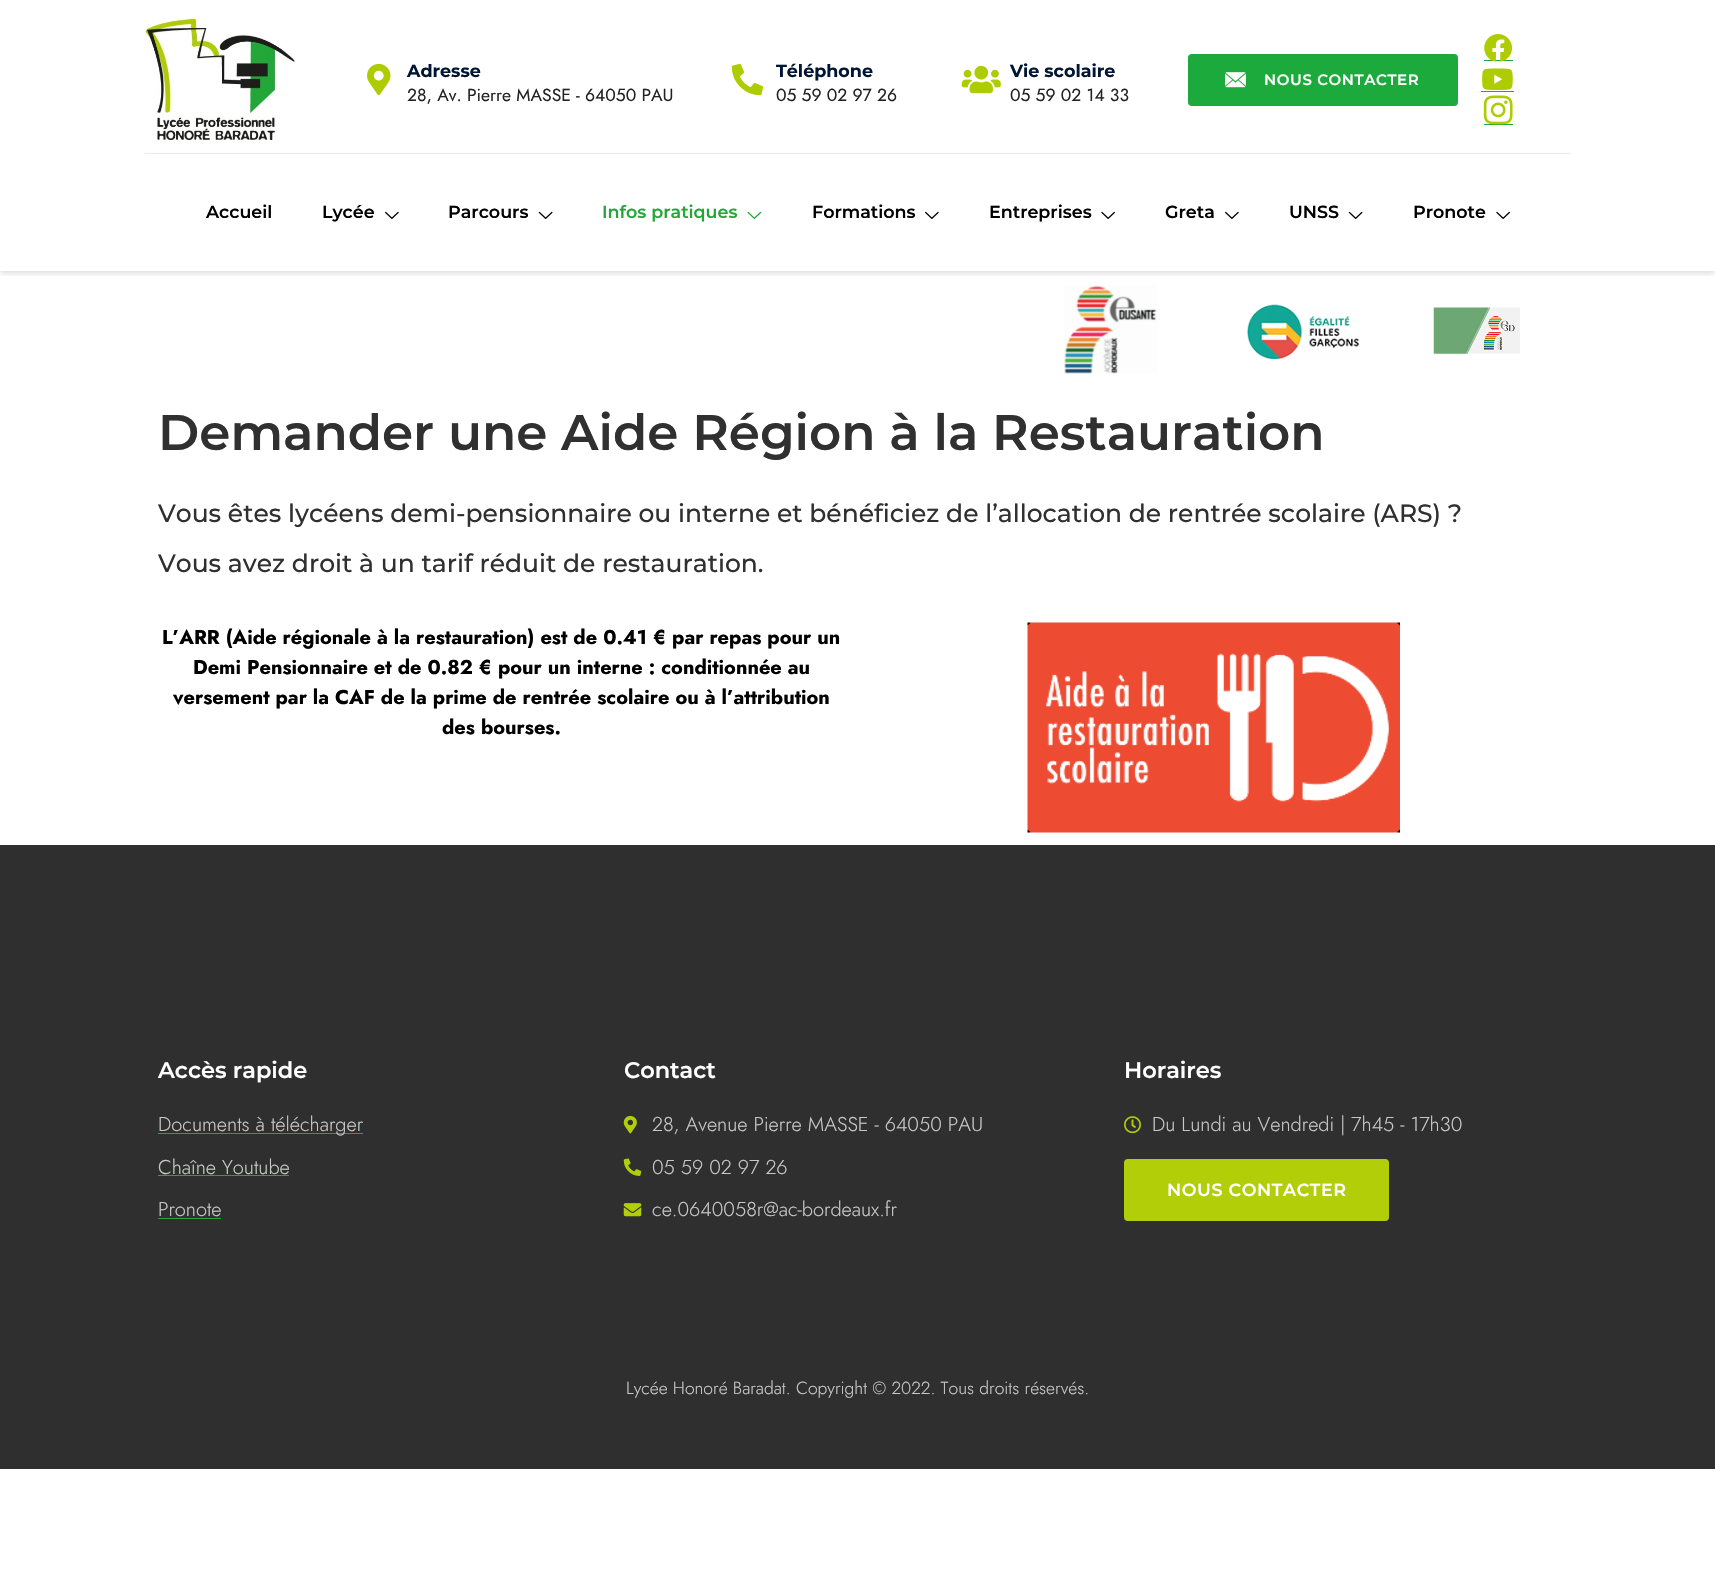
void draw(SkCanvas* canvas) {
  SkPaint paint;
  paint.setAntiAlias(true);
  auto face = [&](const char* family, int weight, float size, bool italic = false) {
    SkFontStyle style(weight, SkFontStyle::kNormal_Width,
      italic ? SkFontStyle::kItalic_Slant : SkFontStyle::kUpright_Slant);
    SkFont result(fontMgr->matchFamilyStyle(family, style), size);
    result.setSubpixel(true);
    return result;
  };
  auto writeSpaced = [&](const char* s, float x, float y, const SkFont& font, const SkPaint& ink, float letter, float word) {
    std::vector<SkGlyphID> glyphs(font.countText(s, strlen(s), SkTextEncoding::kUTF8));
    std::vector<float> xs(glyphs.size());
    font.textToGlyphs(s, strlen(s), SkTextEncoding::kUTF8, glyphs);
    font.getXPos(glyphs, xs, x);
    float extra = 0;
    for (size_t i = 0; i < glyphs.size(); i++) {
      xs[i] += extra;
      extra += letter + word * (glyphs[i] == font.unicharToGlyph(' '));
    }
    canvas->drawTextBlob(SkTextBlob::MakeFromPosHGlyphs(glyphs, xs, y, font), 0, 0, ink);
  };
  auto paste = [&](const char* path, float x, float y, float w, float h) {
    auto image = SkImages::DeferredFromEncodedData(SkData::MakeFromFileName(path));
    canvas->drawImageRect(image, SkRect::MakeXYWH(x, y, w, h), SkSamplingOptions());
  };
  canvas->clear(0xffffffff);
  canvas->save();
  canvas->clipRect(SkRect::MakeXYWH(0, 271, 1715, 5));
  paint.setColor(0x26000000);
  paint.setMaskFilter(SkMaskFilter::MakeBlur(kNormal_SkBlurStyle, 3));
  canvas->drawRect(SkRect::MakeXYWH(0, 1, 1715, 272), paint);
  paint.setMaskFilter(nullptr);
  canvas->restore();
  paste("img/1.png", 145, 18, 151, 122);
  paste("img/2.png", 367, 63, 24, 33);
  paste("img/3.png", 731, 63, 33, 33);
  paste("img/4.png", 961, 65, 40, 29);
  paint.setColor(0xff1caa3c);
  canvas->drawRoundRect(SkRect::MakeXYWH(1188, 54, 270, 52), 4, 4, paint);
  paste("img/5.png", 1225, 72, 21, 16);
  paint.setColor(0xff23a739);
  canvas->drawRect(SkRect::MakeXYWH(1484, 60, 29, 1), paint);
  paste("img/6.png", 1484, 34, 29, 28);
  paste("img/7.png", 1482, 68, 31, 22);
  canvas->drawRect(SkRect::MakeXYWH(1481, 91, 33, 1), paint);
  canvas->drawRect(SkRect::MakeXYWH(1484, 124, 29, 1), paint);
  paste("img/8.png", 1483, 95, 30, 30);
  paint.setColor(0xffe7ebf0);
  canvas->drawRect(SkRect::MakeXYWH(145, 153, 1425, 1), paint);
  paste("img/9.png", 385, 211, 14, 8);
  paste("img/10.png", 538, 211, 15, 8);
  paste("img/11.png", 747, 211, 15, 8);
  paste("img/9.png", 925, 211, 14, 8);
  paste("img/12.png", 1101, 211, 14, 8);
  paste("img/9.png", 1225, 211, 14, 8);
  paste("img/10.png", 1348, 211, 15, 8);
  paste("img/12.png", 1496, 211, 14, 8);
  paste("img/13.png", 1064, 285, 93, 89);
  paste("img/14.png", 1246, 304, 114, 56);
  paste("img/15.png", 1433, 307, 87, 47);
  paste("img/16.png", 1027, 622, 373, 211);
  {
    const struct { float x, y, w, h; SkColor color; } items[] = {
      {0, 845, 1715, 624, 0xff2f2f2f},
      {158, 1133, 205, 1, 0xff23a739},
      {158, 1175, 131, 1, 0xff23a739},
      {158, 1218, 63, 1, 0xff23a739},
    };
    for (auto [x, y, w, h, color] : items) {
      paint.setColor(color);
      canvas->drawRect(SkRect::MakeXYWH(x, y, w, h), paint);
    }
  }
  paste("img/17.png", 623, 1115, 14, 19);
  paste("img/18.png", 623, 1158, 19, 18);
  paste("img/19.png", 623, 1203, 19, 14);
  paste("img/20.png", 1124, 1116, 17, 18);
  paint.setColor(0xffb2ce08);
  canvas->drawRoundRect(SkRect::MakeXYWH(1124, 1159, 265, 62), 4, 4, paint);
  auto f0 = face("Montserrat", 700, 17.5f);
  paint.setColor(0xff011633);
  canvas->drawString("Adresse", 407, 77, f0, paint);
  auto f1 = face("Jost", 400, 17.5f);
  paint.setColor(0xff222222);
  canvas->drawString("28, Av. Pierre MASSE - 64050 PAU", 407, 101, f1, paint);
  paint.setColor(0xff011633);
  canvas->drawString("Téléphone", 776, 77, f0, paint);
  paint.setColor(0xff222222);
  canvas->drawString("05 59 02 97 26", 776, 101, f1, paint);
  paint.setColor(0xff011633);
  canvas->drawString("Vie scolaire", 1010, 77, f0, paint);
  paint.setColor(0xff222222);
  canvas->drawString("05 59 02 14 33", 1010, 101, f1, paint);
  auto f2 = face("Montserrat", 600, 15);
  paint.setColor(0xffffffff);
  writeSpaced("NOUS CONTACTER", 1264, 85, f2, paint, 0.6f, 0);
  auto f3 = face("Montserrat", 600, 17.5f);
  paint.setColor(0xff000000);
  {
    const struct { const char* s; float x, y; } items[] = {
      {"Accueil", 206, 218},
      {"Lycée", 322, 218},
      {"Parcours", 448, 218},
    };
    for (auto [s, x, y] : items) {
      canvas->drawString(s, x, y, f3, paint);
    }
  }
  paint.setColor(0xff23a739);
  canvas->drawString("Infos pratiques", 602, 218, f3, paint);
  paint.setColor(0xff000000);
  {
    const struct { const char* s; float x, y; } items[] = {
      {"Formations", 812, 218},
      {"Entreprises", 989, 218},
      {"Greta", 1165, 218},
      {"UNSS", 1289, 218},
      {"Pronote", 1413, 218},
    };
    for (auto [s, x, y] : items) {
      canvas->drawString(s, x, y, f3, paint);
    }
  }
  auto f4 = face("Montserrat", 600, 50);
  paint.setColor(0xff303030);
  canvas->drawString("Demander une Aide Région à la Restauration", 158, 450, f4, paint);
  auto f5 = face("Montserrat", 500, 25);
  canvas->drawString("Vous êtes lycéens demi-pensionnaire ou interne et bénéficiez de l’allocation de rentrée scolaire (ARS) ?", 158, 522, f5, paint);
  canvas->drawString("Vous avez droit à un tarif réduit de restauration.", 158, 572, f5, paint);
  auto f6 = face("Jost", 700, 20);
  paint.setColor(0xff000000);
  {
    const struct { const char* s; float x, y; } items[] = {
      {"L’ARR (Aide régionale à la restauration) est de 0.41 € par repas pour un", 162, 644},
      {"Demi Pensionnaire et de 0.82 € pour un interne : conditionnée au", 193, 674},
      {"versement par la CAF de la prime de rentrée scolaire ou à l’attribution", 173, 704},
      {"des bourses.", 442, 734},
    };
    for (auto [s, x, y] : items) {
      canvas->drawString(s, x, y, f6, paint);
    }
  }
  auto f7 = face("Montserrat", 600, 22.5f);
  paint.setColor(0xffffffff);
  canvas->drawString("Accès rapide", 158, 1078, f7, paint);
  auto f8 = face("Jost", 300, 20);
  paint.setColor(0xffc8c8c8);
  {
    const struct { const char* s; float x, y; } items[] = {
      {"Documents à télécharger", 158, 1131},
      {"Chaîne Youtube", 158, 1174},
      {"Pronote", 158, 1216},
    };
    for (auto [s, x, y] : items) {
      canvas->drawString(s, x, y, f8, paint);
    }
  }
  paint.setColor(0xffffffff);
  canvas->drawString("Contact", 624, 1078, f7, paint);
  paint.setColor(0xffc8c8c8);
  {
    const struct { const char* s; float x, y; } items[] = {
      {"28, Avenue Pierre MASSE - 64050 PAU", 652, 1131},
      {"05 59 02 97 26", 652, 1174},
      {"ce.0640058r@ac-bordeaux.fr", 652, 1216},
    };
    for (auto [s, x, y] : items) {
      canvas->drawString(s, x, y, f8, paint);
    }
  }
  paint.setColor(0xffffffff);
  canvas->drawString("Horaires", 1124, 1078, f7, paint);
  paint.setColor(0xffc8c8c8);
  canvas->drawString("Du Lundi au Vendredi | 7h45 - 17h30", 1152, 1131, f8, paint);
  paint.setColor(0xffffffff);
  writeSpaced("NOUS CONTACTER", 1167, 1196, f3, paint, 0.6f, 0);
  auto f9 = face("Jost", 300, 17.5f);
  paint.setColor(0xffc8c8c8);
  canvas->drawString("Lycée Honoré Baradat. Copyright © 2022. Tous droits réservés.", 626, 1394, f9, paint);
}
